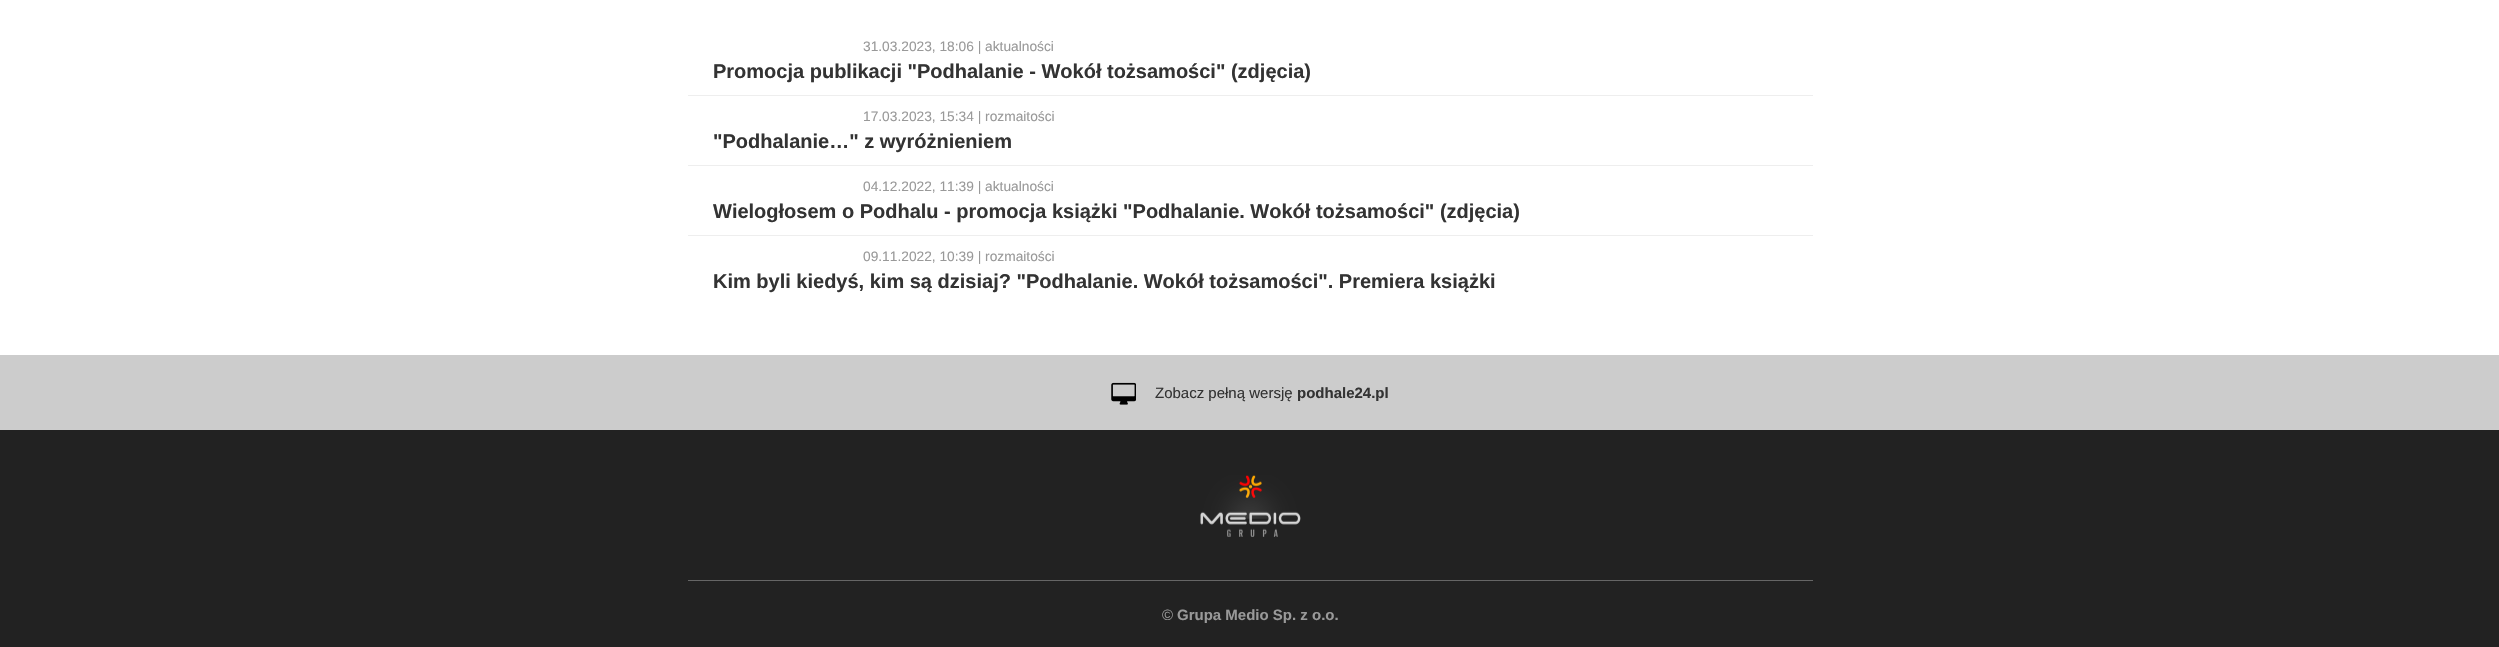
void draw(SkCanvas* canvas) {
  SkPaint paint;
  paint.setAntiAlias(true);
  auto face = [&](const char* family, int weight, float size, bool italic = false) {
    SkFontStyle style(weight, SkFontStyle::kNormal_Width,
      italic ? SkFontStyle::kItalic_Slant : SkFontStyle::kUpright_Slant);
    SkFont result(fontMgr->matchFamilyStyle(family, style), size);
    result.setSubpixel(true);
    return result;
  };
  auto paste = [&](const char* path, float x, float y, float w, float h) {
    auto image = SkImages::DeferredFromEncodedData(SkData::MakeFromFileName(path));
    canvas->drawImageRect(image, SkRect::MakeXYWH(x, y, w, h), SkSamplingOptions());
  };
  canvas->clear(0xffffffff);
  {
    const struct { float x, y, w, h; SkColor color; } items[] = {
      {688, 95, 1125, 1, 0xffeeeeee},
      {688, 165, 1125, 1, 0xffeeeeee},
      {688, 235, 1125, 1, 0xffeeeeee},
      {0, 355, 2499, 75, 0xffcccccc},
    };
    for (auto [x, y, w, h, color] : items) {
      paint.setColor(color);
      canvas->drawRect(SkRect::MakeXYWH(x, y, w, h), paint);
    }
  }
  paste("img/1.png", 1111, 382, 25, 23);
  paint.setColor(0xff222222);
  canvas->drawRect(SkRect::MakeXYWH(0, 430, 2499, 217), paint);
  paste("img/2.png", 1200, 475, 101, 62);
  paint.setColor(0xff666666);
  canvas->drawRect(SkRect::MakeXYWH(688, 580, 1125, 1), paint);
  auto f0 = face("Liberation Sans", 400, 13.75f);
  paint.setColor(0xff999999);
  canvas->drawString("31.03.2023, 18:06 | aktualności", 863, 51, f0, paint);
  auto f1 = face("Liberation Sans", 700, 20);
  paint.setColor(0xff333333);
  canvas->drawString("Promocja publikacji \"Podhalanie - Wokół tożsamości\" (zdjęcia)", 713, 78, f1, paint);
  paint.setColor(0xff999999);
  canvas->drawString("17.03.2023, 15:34 | rozmaitości", 863, 121, f0, paint);
  paint.setColor(0xff333333);
  canvas->drawString("\"Podhalanie…\" z wyróżnieniem", 713, 148, f1, paint);
  paint.setColor(0xff999999);
  canvas->drawString("04.12.2022, 11:39 | aktualności", 863, 191, f0, paint);
  paint.setColor(0xff333333);
  canvas->drawString("Wielogłosem o Podhalu - promocja książki \"Podhalanie. Wokół tożsamości\" (zdjęcia)", 713, 218, f1, paint);
  paint.setColor(0xff999999);
  canvas->drawString("09.11.2022, 10:39 | rozmaitości", 863, 261, f0, paint);
  paint.setColor(0xff333333);
  canvas->drawString("Kim byli kiedyś, kim są dzisiaj? \"Podhalanie. Wokół tożsamości\". Premiera książki", 713, 288, f1, paint);
  auto f2 = face("Liberation Sans", 400, 15);
  canvas->drawString("Zobacz pełną wersję", 1155, 398, f2, paint);
  auto f3 = face("Liberation Sans", 700, 15);
  canvas->drawString("podhale24.pl", 1297, 398, f3, paint);
  paint.setColor(0xff999999);
  canvas->drawString("©", 1162, 620, f2, paint);
  canvas->drawString("Grupa Medio Sp. z o.o.", 1177, 620, f3, paint);
}
